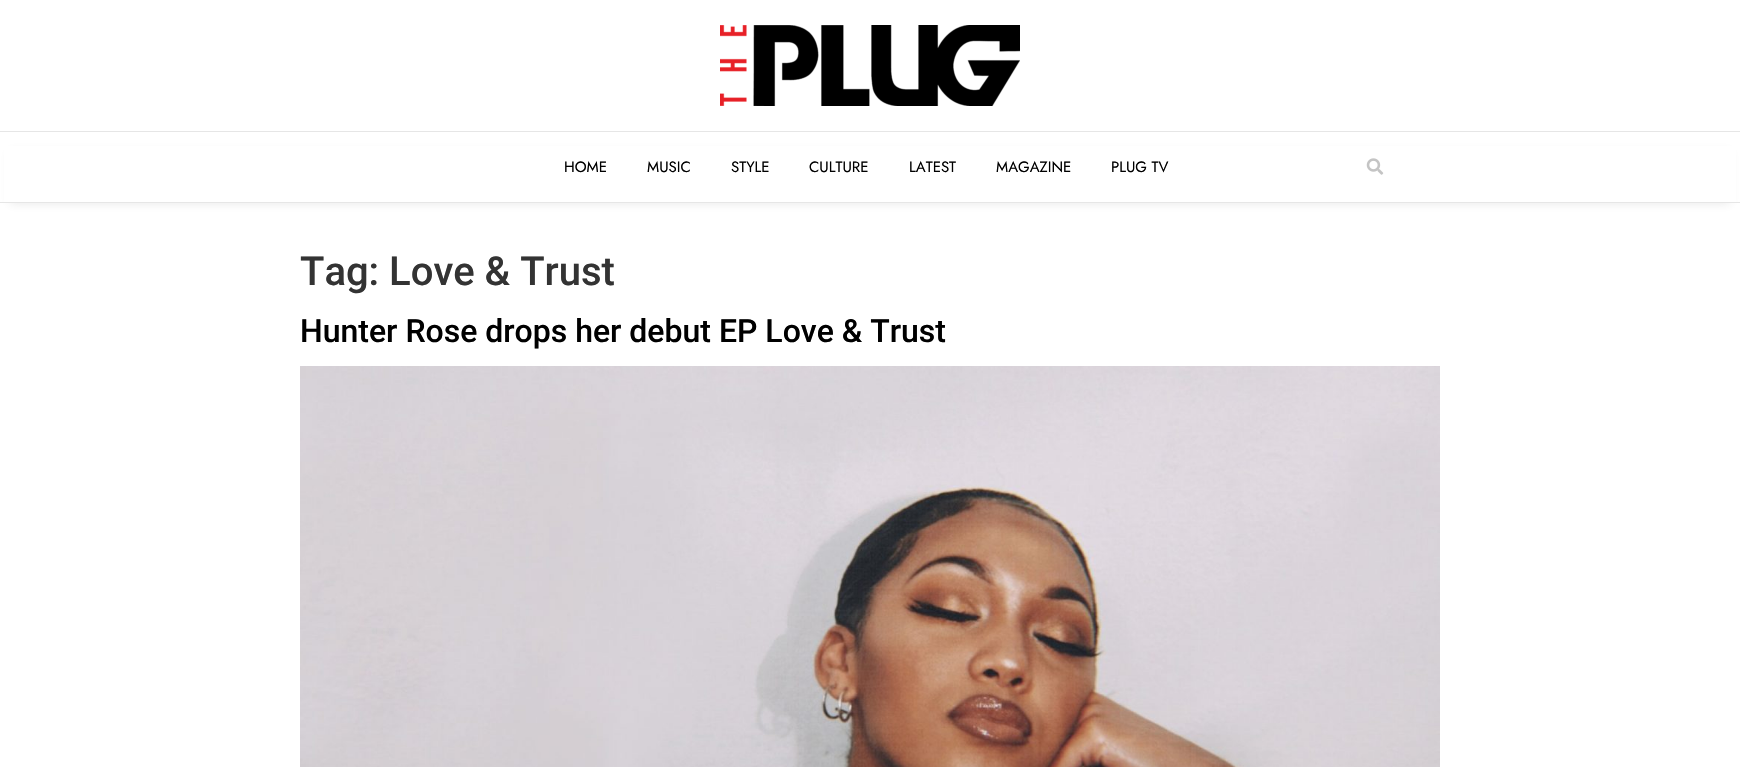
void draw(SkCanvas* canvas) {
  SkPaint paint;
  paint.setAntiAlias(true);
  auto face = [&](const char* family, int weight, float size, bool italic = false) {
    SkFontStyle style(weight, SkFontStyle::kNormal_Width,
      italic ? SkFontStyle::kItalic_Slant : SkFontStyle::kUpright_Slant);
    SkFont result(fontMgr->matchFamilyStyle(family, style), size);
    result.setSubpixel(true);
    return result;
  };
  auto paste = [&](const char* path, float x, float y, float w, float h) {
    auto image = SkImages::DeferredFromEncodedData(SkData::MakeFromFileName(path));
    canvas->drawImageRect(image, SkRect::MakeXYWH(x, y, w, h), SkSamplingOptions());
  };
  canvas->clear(0xffffffff);
  paint.setColor(0xffe6e6e6);
  canvas->drawRect(SkRect::MakeXYWH(0, 131, 1740, 1), paint);
  paste("img/1.png", 720, 25, 300, 81);
  paint.setColor(0x1a131313);
  paint.setMaskFilter(SkMaskFilter::MakeBlur(kNormal_SkBlurStyle, 5));
  canvas->drawRect(SkRect::MakeXYWH(10, 152, 1720, 51), paint);
  paint.setMaskFilter(nullptr);
  paint.setColor(0xffffffff);
  canvas->drawRect(SkRect::MakeXYWH(4, 146, 1732, 56), paint);
  paint.setColor(0xffe6e6e6);
  canvas->drawRect(SkRect::MakeXYWH(0, 202, 1740, 1), paint);
  paste("img/2.png", 1366, 158, 18, 17);
  paste("img/3.png", 300, 366, 1140, 401);
  auto f0 = face("Jost", 400, 15);
  paint.setColor(0xff000000);
  {
    const struct { const char* s; float x, y; } items[] = {
      {"HOME", 564, 172},
      {"MUSIC", 647, 172},
      {"STYLE", 731, 172},
      {"CULTURE", 809, 172},
      {"LATEST", 909, 172},
      {"MAGAZINE", 996, 172},
      {"PLUG TV", 1111, 172},
    };
    for (auto [s, x, y] : items) {
      canvas->drawString(s, x, y, f0, paint);
    }
  }
  auto f1 = face("Roboto", 500, 40);
  paint.setColor(0xff333333);
  canvas->drawString("Tag: Love & Trust", 300, 285, f1, paint);
  auto f2 = face("Roboto", 500, 32);
  paint.setColor(0xff000000);
  canvas->drawString("Hunter Rose drops her debut EP Love & Trust", 300, 342, f2, paint);
}
